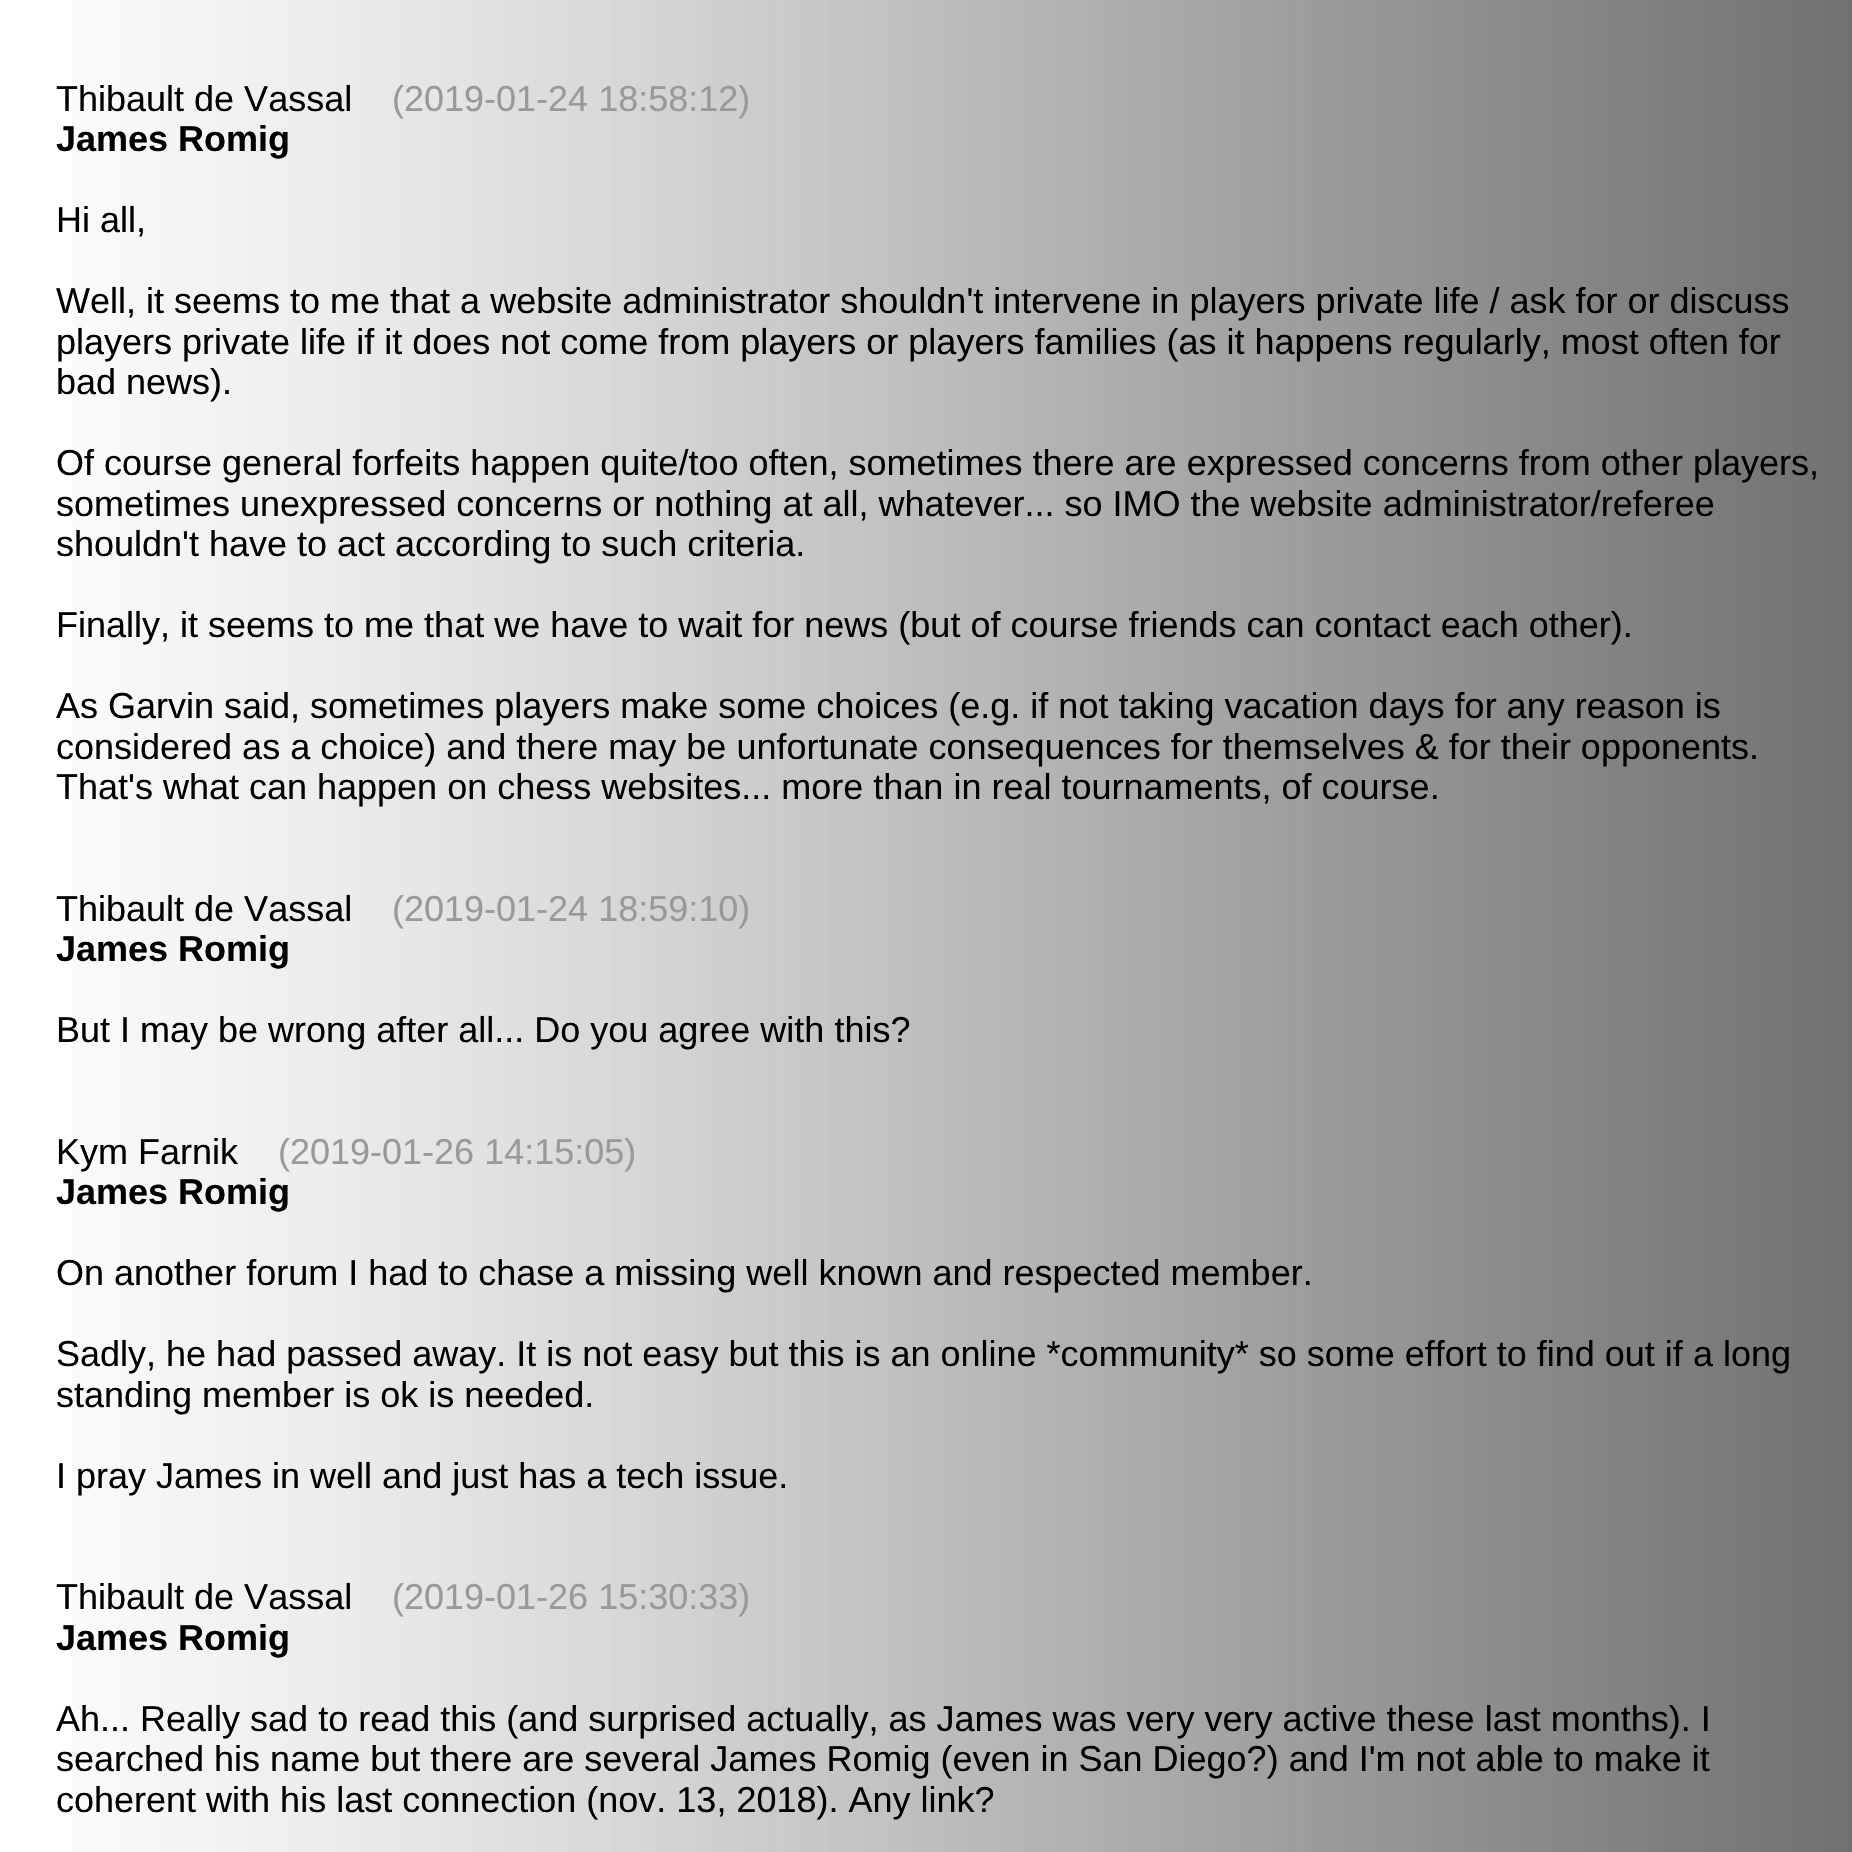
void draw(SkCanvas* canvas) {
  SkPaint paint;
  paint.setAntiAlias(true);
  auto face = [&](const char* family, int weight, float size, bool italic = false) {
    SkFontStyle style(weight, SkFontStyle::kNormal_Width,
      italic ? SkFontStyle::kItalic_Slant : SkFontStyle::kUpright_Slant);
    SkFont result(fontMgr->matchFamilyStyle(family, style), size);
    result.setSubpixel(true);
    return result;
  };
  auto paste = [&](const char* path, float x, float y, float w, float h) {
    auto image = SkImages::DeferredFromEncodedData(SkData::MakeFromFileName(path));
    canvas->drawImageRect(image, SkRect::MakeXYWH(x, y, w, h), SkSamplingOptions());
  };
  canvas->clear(0xffffffff);
  paste("img/1.png", 72, 0, 1780, 1852);
  auto f0 = face("Liberation Sans", 400, 36);
  paint.setColor(0xff000000);
  canvas->drawString("Thibault de Vassal", 56, 111, f0, paint);
  paint.setColor(0xff999999);
  canvas->drawString("(2019-01-24 18:58:12)", 392, 111, f0, paint);
  auto f1 = face("Liberation Sans", 700, 36);
  paint.setColor(0xff000000);
  canvas->drawString("James Romig", 56, 151, f1, paint);
  {
    const struct { const char* s; float x, y; } items[] = {
      {"Hi all,", 56, 232},
      {"Well, it seems to me that a website administrator shouldn't intervene in players private life / ask for or discuss", 56, 313},
      {"players private life if it does not come from players or players families (as it happens regularly, most often for", 56, 354},
      {"bad news).", 56, 394},
      {"Of course general forfeits happen quite/too often, sometimes there are expressed concerns from other players,", 56, 475},
      {"sometimes unexpressed concerns or nothing at all, whatever... so IMO the website administrator/referee", 56, 516},
      {"shouldn't have to act according to such criteria.", 56, 556},
      {"Finally, it seems to me that we have to wait for news (but of course friends can contact each other).", 56, 637},
      {"As Garvin said, sometimes players make some choices (e.g. if not taking vacation days for any reason is", 56, 718},
      {"considered as a choice) and there may be unfortunate consequences for themselves & for their opponents.", 56, 759},
      {"That's what can happen on chess websites... more than in real tournaments, of course.", 56, 799},
      {"Thibault de Vassal", 56, 921},
    };
    for (auto [s, x, y] : items) {
      canvas->drawString(s, x, y, f0, paint);
    }
  }
  paint.setColor(0xff999999);
  canvas->drawString("(2019-01-24 18:59:10)", 392, 921, f0, paint);
  paint.setColor(0xff000000);
  canvas->drawString("James Romig", 56, 961, f1, paint);
  canvas->drawString("But I may be wrong after all... Do you agree with this?", 56, 1042, f0, paint);
  canvas->drawString("Kym Farnik", 56, 1164, f0, paint);
  paint.setColor(0xff999999);
  canvas->drawString("(2019-01-26 14:15:05)", 278, 1164, f0, paint);
  paint.setColor(0xff000000);
  canvas->drawString("James Romig", 56, 1204, f1, paint);
  {
    const struct { const char* s; float x, y; } items[] = {
      {"On another forum I had to chase a missing well known and respected member.", 56, 1285},
      {"Sadly, he had passed away. It is not easy but this is an online *community* so some effort to find out if a long", 56, 1366},
      {"standing member is ok is needed.", 56, 1407},
      {"I pray James in well and just has a tech issue.", 56, 1488},
      {"Thibault de Vassal", 56, 1609},
    };
    for (auto [s, x, y] : items) {
      canvas->drawString(s, x, y, f0, paint);
    }
  }
  paint.setColor(0xff999999);
  canvas->drawString("(2019-01-26 15:30:33)", 392, 1609, f0, paint);
  paint.setColor(0xff000000);
  canvas->drawString("James Romig", 56, 1650, f1, paint);
  {
    const struct { const char* s; float x, y; } items[] = {
      {"Ah... Really sad to read this (and surprised actually, as James was very very active these last months). I", 56, 1731},
      {"searched his name but there are several James Romig (even in San Diego?) and I'm not able to make it", 56, 1771},
      {"coherent with his last connection (nov. 13, 2018). Any link?", 56, 1812},
    };
    for (auto [s, x, y] : items) {
      canvas->drawString(s, x, y, f0, paint);
    }
  }
}
